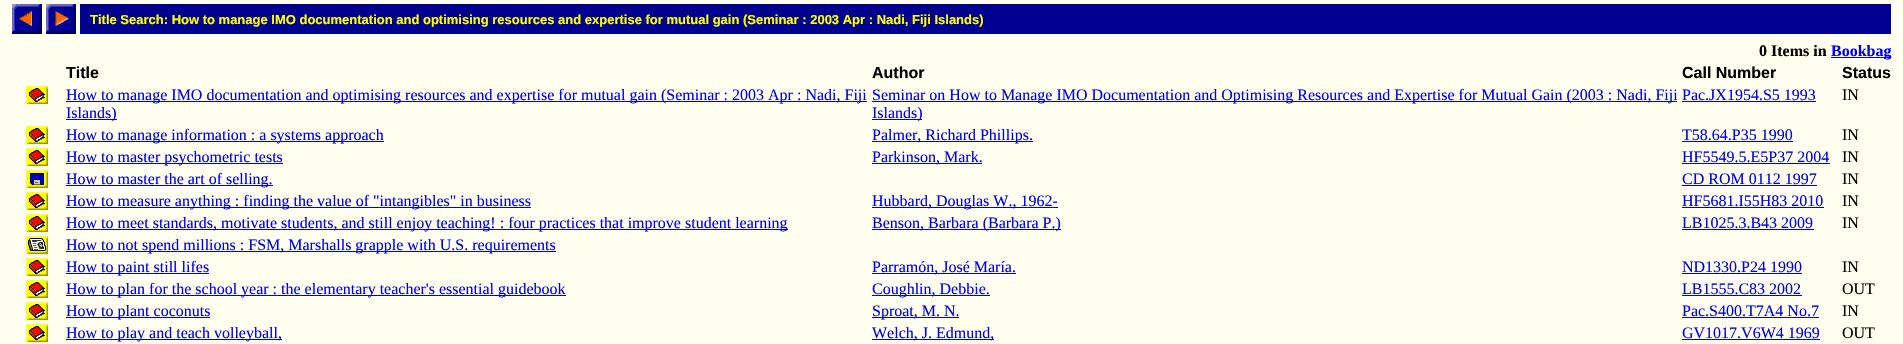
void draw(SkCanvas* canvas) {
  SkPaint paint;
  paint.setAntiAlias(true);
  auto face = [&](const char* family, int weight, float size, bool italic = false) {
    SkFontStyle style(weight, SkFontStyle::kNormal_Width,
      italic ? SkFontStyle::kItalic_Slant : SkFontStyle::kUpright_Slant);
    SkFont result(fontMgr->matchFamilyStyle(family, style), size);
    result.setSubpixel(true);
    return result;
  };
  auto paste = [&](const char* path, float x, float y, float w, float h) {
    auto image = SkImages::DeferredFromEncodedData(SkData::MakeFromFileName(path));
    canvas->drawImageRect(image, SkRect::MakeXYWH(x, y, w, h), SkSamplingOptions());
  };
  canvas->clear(0xffffffef);
  paste("img/1.png", 12, 4, 30, 30);
  paste("img/2.png", 46, 4, 30, 30);
  paint.setColor(0xff00008e);
  canvas->drawRect(SkRect::MakeXYWH(80, 4, 1811, 30), paint);
  paint.setColor(0xff0000ee);
  canvas->drawRect(SkRect::MakeXYWH(1831, 57, 60, 1), paint);
  paste("img/3.png", 26, 86, 22, 18);
  {
    const struct { float x, y, w, h; SkColor color; } items[] = {
      {66, 101, 801, 1, 0xff0000ee},
      {66, 119, 51, 1, 0xff0000ee},
      {872, 101, 805, 1, 0xff0000ee},
      {872, 119, 50, 1, 0xff0000ee},
      {1682, 101, 134, 1, 0xff0000ee},
    };
    for (auto [x, y, w, h, color] : items) {
      paint.setColor(color);
      canvas->drawRect(SkRect::MakeXYWH(x, y, w, h), paint);
    }
  }
  paste("img/3.png", 26, 126, 22, 18);
  {
    const struct { float x, y, w, h; SkColor color; } items[] = {
      {66, 141, 318, 1, 0xff0000ee},
      {872, 141, 161, 1, 0xff0000ee},
      {1682, 141, 111, 1, 0xff0000ee},
    };
    for (auto [x, y, w, h, color] : items) {
      paint.setColor(color);
      canvas->drawRect(SkRect::MakeXYWH(x, y, w, h), paint);
    }
  }
  paste("img/3.png", 26, 148, 22, 18);
  {
    const struct { float x, y, w, h; SkColor color; } items[] = {
      {66, 163, 217, 1, 0xff0000ee},
      {872, 163, 110, 1, 0xff0000ee},
      {1682, 163, 148, 1, 0xff0000ee},
    };
    for (auto [x, y, w, h, color] : items) {
      paint.setColor(color);
      canvas->drawRect(SkRect::MakeXYWH(x, y, w, h), paint);
    }
  }
  paste("img/4.png", 26, 170, 22, 18);
  canvas->drawRect(SkRect::MakeXYWH(66, 185, 207, 1), paint);
  canvas->drawRect(SkRect::MakeXYWH(1682, 185, 135, 1), paint);
  paste("img/3.png", 26, 192, 22, 18);
  {
    const struct { float x, y, w, h; SkColor color; } items[] = {
      {66, 207, 465, 1, 0xff0000ee},
      {872, 207, 186, 1, 0xff0000ee},
      {1682, 207, 142, 1, 0xff0000ee},
    };
    for (auto [x, y, w, h, color] : items) {
      paint.setColor(color);
      canvas->drawRect(SkRect::MakeXYWH(x, y, w, h), paint);
    }
  }
  paste("img/3.png", 26, 214, 22, 18);
  {
    const struct { float x, y, w, h; SkColor color; } items[] = {
      {66, 229, 722, 1, 0xff0000ee},
      {872, 229, 189, 1, 0xff0000ee},
      {1682, 229, 132, 1, 0xff0000ee},
    };
    for (auto [x, y, w, h, color] : items) {
      paint.setColor(color);
      canvas->drawRect(SkRect::MakeXYWH(x, y, w, h), paint);
    }
  }
  paste("img/5.png", 26, 236, 22, 18);
  canvas->drawRect(SkRect::MakeXYWH(66, 251, 490, 1), paint);
  paste("img/3.png", 26, 258, 22, 18);
  {
    const struct { float x, y, w, h; SkColor color; } items[] = {
      {66, 273, 143, 1, 0xff0000ee},
      {872, 273, 144, 1, 0xff0000ee},
      {1682, 273, 120, 1, 0xff0000ee},
    };
    for (auto [x, y, w, h, color] : items) {
      paint.setColor(color);
      canvas->drawRect(SkRect::MakeXYWH(x, y, w, h), paint);
    }
  }
  paste("img/3.png", 26, 280, 22, 18);
  {
    const struct { float x, y, w, h; SkColor color; } items[] = {
      {66, 295, 500, 1, 0xff0000ee},
      {872, 295, 118, 1, 0xff0000ee},
      {1682, 295, 120, 1, 0xff0000ee},
    };
    for (auto [x, y, w, h, color] : items) {
      paint.setColor(color);
      canvas->drawRect(SkRect::MakeXYWH(x, y, w, h), paint);
    }
  }
  paste("img/3.png", 26, 302, 22, 18);
  {
    const struct { float x, y, w, h; SkColor color; } items[] = {
      {66, 317, 144, 1, 0xff0000ee},
      {872, 317, 87, 1, 0xff0000ee},
      {1682, 317, 137, 1, 0xff0000ee},
    };
    for (auto [x, y, w, h, color] : items) {
      paint.setColor(color);
      canvas->drawRect(SkRect::MakeXYWH(x, y, w, h), paint);
    }
  }
  paste("img/3.png", 26, 324, 22, 18);
  {
    const struct { float x, y, w, h; SkColor color; } items[] = {
      {66, 339, 216, 1, 0xff0000ee},
      {872, 339, 122, 1, 0xff0000ee},
      {1682, 339, 138, 1, 0xff0000ee},
    };
    for (auto [x, y, w, h, color] : items) {
      paint.setColor(color);
      canvas->drawRect(SkRect::MakeXYWH(x, y, w, h), paint);
    }
  }
  auto f0 = face("Liberation Sans", 700, 13);
  paint.setColor(0xffffff00);
  canvas->drawString("Title Search: How to manage IMO documentation and optimising resources and expertise for mutual gain (Seminar : 2003 Apr : Nadi, Fiji Islands)", 90, 24, f0, paint);
  auto f1 = face("Liberation Serif", 700, 16);
  paint.setColor(0xff000000);
  canvas->drawString("0 Items in", 1759, 56, f1, paint);
  paint.setColor(0xff0000ee);
  canvas->drawString("Bookbag", 1831, 56, f1, paint);
  auto f2 = face("Liberation Sans", 700, 16);
  paint.setColor(0xff000000);
  {
    const struct { const char* s; float x, y; } items[] = {
      {"Title", 66, 78},
      {"Author", 872, 78},
      {"Call Number", 1682, 78},
      {"Status", 1842, 78},
    };
    for (auto [s, x, y] : items) {
      canvas->drawString(s, x, y, f2, paint);
    }
  }
  auto f3 = face("Liberation Serif", 400, 16);
  paint.setColor(0xff0000ee);
  {
    const struct { const char* s; float x, y; } items[] = {
      {"How to manage IMO documentation and optimising resources and expertise for mutual gain (Seminar : 2003 Apr : Nadi, Fiji", 66, 100},
      {"Islands)", 66, 118},
      {"Seminar on How to Manage IMO Documentation and Optimising Resources and Expertise for Mutual Gain (2003 : Nadi, Fiji", 872, 100},
      {"Islands)", 872, 118},
      {"Pac.JX1954.S5 1993", 1682, 100},
    };
    for (auto [s, x, y] : items) {
      canvas->drawString(s, x, y, f3, paint);
    }
  }
  paint.setColor(0xff000000);
  canvas->drawString("IN", 1842, 100, f3, paint);
  paint.setColor(0xff0000ee);
  {
    const struct { const char* s; float x, y; } items[] = {
      {"How to manage information : a systems approach", 66, 140},
      {"Palmer, Richard Phillips.", 872, 140},
      {"T58.64.P35 1990", 1682, 140},
    };
    for (auto [s, x, y] : items) {
      canvas->drawString(s, x, y, f3, paint);
    }
  }
  paint.setColor(0xff000000);
  canvas->drawString("IN", 1842, 140, f3, paint);
  paint.setColor(0xff0000ee);
  {
    const struct { const char* s; float x, y; } items[] = {
      {"How to master psychometric tests", 66, 162},
      {"Parkinson, Mark.", 872, 162},
      {"HF5549.5.E5P37 2004", 1682, 162},
    };
    for (auto [s, x, y] : items) {
      canvas->drawString(s, x, y, f3, paint);
    }
  }
  paint.setColor(0xff000000);
  canvas->drawString("IN", 1842, 162, f3, paint);
  paint.setColor(0xff0000ee);
  canvas->drawString("How to master the art of selling.", 66, 184, f3, paint);
  canvas->drawString("CD ROM 0112 1997", 1682, 184, f3, paint);
  paint.setColor(0xff000000);
  canvas->drawString("IN", 1842, 184, f3, paint);
  paint.setColor(0xff0000ee);
  {
    const struct { const char* s; float x, y; } items[] = {
      {"How to measure anything : finding the value of \"intangibles\" in business", 66, 206},
      {"Hubbard, Douglas W., 1962-", 872, 206},
      {"HF5681.I55H83 2010", 1682, 206},
    };
    for (auto [s, x, y] : items) {
      canvas->drawString(s, x, y, f3, paint);
    }
  }
  paint.setColor(0xff000000);
  canvas->drawString("IN", 1842, 206, f3, paint);
  paint.setColor(0xff0000ee);
  {
    const struct { const char* s; float x, y; } items[] = {
      {"How to meet standards, motivate students, and still enjoy teaching! : four practices that improve student learning", 66, 228},
      {"Benson, Barbara (Barbara P.)", 872, 228},
      {"LB1025.3.B43 2009", 1682, 228},
    };
    for (auto [s, x, y] : items) {
      canvas->drawString(s, x, y, f3, paint);
    }
  }
  paint.setColor(0xff000000);
  canvas->drawString("IN", 1842, 228, f3, paint);
  paint.setColor(0xff0000ee);
  {
    const struct { const char* s; float x, y; } items[] = {
      {"How to not spend millions : FSM, Marshalls grapple with U.S. requirements", 66, 250},
      {"How to paint still lifes", 66, 272},
      {"Parramón, José María.", 872, 272},
      {"ND1330.P24 1990", 1682, 272},
    };
    for (auto [s, x, y] : items) {
      canvas->drawString(s, x, y, f3, paint);
    }
  }
  paint.setColor(0xff000000);
  canvas->drawString("IN", 1842, 272, f3, paint);
  paint.setColor(0xff0000ee);
  {
    const struct { const char* s; float x, y; } items[] = {
      {"How to plan for the school year : the elementary teacher's essential guidebook", 66, 294},
      {"Coughlin, Debbie.", 872, 294},
      {"LB1555.C83 2002", 1682, 294},
    };
    for (auto [s, x, y] : items) {
      canvas->drawString(s, x, y, f3, paint);
    }
  }
  paint.setColor(0xff000000);
  canvas->drawString("OUT", 1842, 294, f3, paint);
  paint.setColor(0xff0000ee);
  {
    const struct { const char* s; float x, y; } items[] = {
      {"How to plant coconuts", 66, 316},
      {"Sproat, M. N.", 872, 316},
      {"Pac.S400.T7A4 No.7", 1682, 316},
    };
    for (auto [s, x, y] : items) {
      canvas->drawString(s, x, y, f3, paint);
    }
  }
  paint.setColor(0xff000000);
  canvas->drawString("IN", 1842, 316, f3, paint);
  paint.setColor(0xff0000ee);
  {
    const struct { const char* s; float x, y; } items[] = {
      {"How to play and teach volleyball,", 66, 338},
      {"Welch, J. Edmund,", 872, 338},
      {"GV1017.V6W4 1969", 1682, 338},
    };
    for (auto [s, x, y] : items) {
      canvas->drawString(s, x, y, f3, paint);
    }
  }
  paint.setColor(0xff000000);
  canvas->drawString("OUT", 1842, 338, f3, paint);
}
